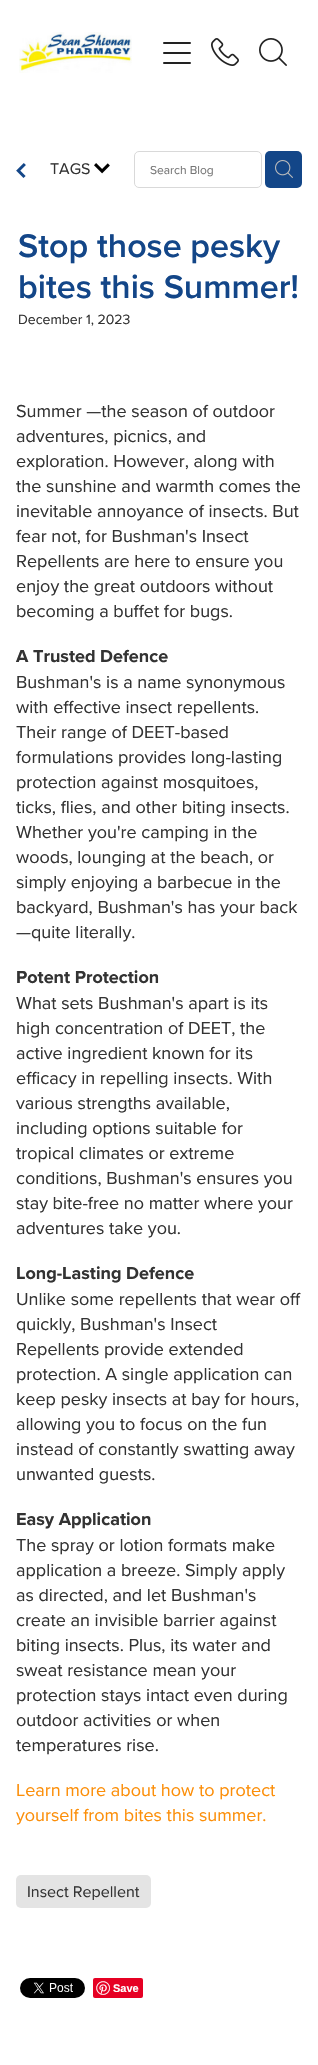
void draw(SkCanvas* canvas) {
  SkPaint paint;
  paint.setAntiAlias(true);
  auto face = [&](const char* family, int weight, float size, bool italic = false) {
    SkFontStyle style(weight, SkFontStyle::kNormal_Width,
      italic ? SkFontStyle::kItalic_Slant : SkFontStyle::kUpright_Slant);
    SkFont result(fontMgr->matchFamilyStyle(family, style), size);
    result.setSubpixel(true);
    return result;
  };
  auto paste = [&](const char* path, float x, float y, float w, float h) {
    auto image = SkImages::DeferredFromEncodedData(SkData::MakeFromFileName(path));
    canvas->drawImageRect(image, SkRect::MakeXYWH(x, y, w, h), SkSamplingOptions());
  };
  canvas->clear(0xffffffff);
  paste("img/1.png", 19, 32, 113, 41);
  paint.setColor(0xff222222);
  canvas->drawRoundRect(SkRect::MakeXYWH(163, 52, 28, 2), 1, 1, paint);
  canvas->drawRoundRect(SkRect::MakeXYWH(163, 42, 28, 2), 1, 1, paint);
  canvas->drawRoundRect(SkRect::MakeXYWH(163, 62, 28, 2), 1, 1, paint);
  paste("img/2.png", 211, 38, 28, 28);
  paste("img/3.png", 259, 38, 28, 28);
  paste("img/4.png", 16, 163, 10, 15);
  paste("img/5.png", 94, 163, 16, 11);
  paint.setStroke(true);
  paint.setStrokeWidth(1);
  paint.setColor(0xffd9d9d9);
  canvas->drawRoundRect(SkRect::MakeXYWH(134.5f, 151.5f, 127, 36), 4.5f, 4.5f, paint);
  paint.setStroke(false);
  paint.setColor(0xff134688);
  canvas->drawRoundRect(SkRect::MakeXYWH(265, 151, 37, 37), 5, 5, paint);
  paste("img/6.png", 275, 160, 18, 18);
  paint.setColor(0xffe4e4e4);
  canvas->drawRoundRect(SkRect::MakeXYWH(16, 1875, 135, 33), 5, 5, paint);
  paste("img/7.png", 20, 1978, 65, 20);
  paint.setColor(0xffe60023);
  canvas->drawRoundRect(SkRect::MakeXYWH(93, 1978, 50, 20), 2, 2, paint);
  paste("img/8.png", 96, 1981, 14, 14);
  auto f0 = face("Proxima Nova", 400, 16);
  paint.setColor(0xff333333);
  canvas->drawString("TAGS", 50, 174, f0, paint);
  auto f1 = face("Proxima Nova", 400, 12);
  paint.setColor(0xff757575);
  canvas->drawString("Search Blog", 150, 174, f1, paint);
  auto f2 = face("Proxima Nova", 600, 34);
  paint.setColor(0xff134688);
  canvas->drawString("Stop those pesky", 18, 257, f2, paint);
  canvas->drawString("bites this Summer!", 18, 298, f2, paint);
  auto f3 = face("Proxima Nova", 400, 14);
  paint.setColor(0xff333333);
  canvas->drawString("December 1, 2023", 18, 324, f3, paint);
  auto f4 = face("Proxima Nova", 400, 18);
  {
    const struct { const char* s; float x, y; } items[] = {
      {"Summer —the season of outdoor", 16, 417},
      {"adventures, picnics, and", 16, 442},
      {"exploration. However, along with", 16, 467},
      {"the sunshine and warmth comes the", 16, 492},
      {"inevitable annoyance of insects. But", 16, 517},
      {"fear not, for Bushman's Insect", 16, 542},
      {"Repellents are here to ensure you", 16, 567},
      {"enjoy the great outdoors without", 16, 592},
      {"becoming a buffet for bugs.", 16, 617},
    };
    for (auto [s, x, y] : items) {
      canvas->drawString(s, x, y, f4, paint);
    }
  }
  auto f5 = face("Proxima Nova", 700, 18);
  canvas->drawString("A Trusted Defence", 16, 662, f5, paint);
  {
    const struct { const char* s; float x, y; } items[] = {
      {"Bushman's is a name synonymous", 16, 688},
      {"with effective insect repellents.", 16, 713},
      {"Their range of DEET-based", 16, 738},
      {"formulations provides long-lasting", 16, 763},
      {"protection against mosquitoes,", 16, 788},
      {"ticks, flies, and other biting insects.", 16, 813},
      {"Whether you're camping in the", 16, 838},
      {"woods, lounging at the beach, or", 16, 863},
      {"simply enjoying a barbecue in the", 16, 888},
      {"backyard, Bushman's has your back", 16, 913},
      {"—quite literally.", 16, 938},
    };
    for (auto [s, x, y] : items) {
      canvas->drawString(s, x, y, f4, paint);
    }
  }
  canvas->drawString("Potent Protection", 16, 983, f5, paint);
  {
    const struct { const char* s; float x, y; } items[] = {
      {"What sets Bushman's apart is its", 16, 1009},
      {"high concentration of DEET, the", 16, 1034},
      {"active ingredient known for its", 16, 1059},
      {"efficacy in repelling insects. With", 16, 1084},
      {"various strengths available,", 16, 1109},
      {"including options suitable for", 16, 1134},
      {"tropical climates or extreme", 16, 1159},
      {"conditions, Bushman's ensures you", 16, 1184},
      {"stay bite-free no matter where your", 16, 1209},
      {"adventures take you.", 16, 1234},
    };
    for (auto [s, x, y] : items) {
      canvas->drawString(s, x, y, f4, paint);
    }
  }
  canvas->drawString("Long-Lasting Defence", 16, 1279, f5, paint);
  {
    const struct { const char* s; float x, y; } items[] = {
      {"Unlike some repellents that wear off", 16, 1305},
      {"quickly, Bushman's Insect", 16, 1330},
      {"Repellents provide extended", 16, 1355},
      {"protection. A single application can", 16, 1380},
      {"keep pesky insects at bay for hours,", 16, 1405},
      {"allowing you to focus on the fun", 16, 1430},
      {"instead of constantly swatting away", 16, 1455},
      {"unwanted guests.", 16, 1480},
    };
    for (auto [s, x, y] : items) {
      canvas->drawString(s, x, y, f4, paint);
    }
  }
  canvas->drawString("Easy Application", 16, 1525, f5, paint);
  {
    const struct { const char* s; float x, y; } items[] = {
      {"The spray or lotion formats make", 16, 1551},
      {"application a breeze. Simply apply", 16, 1576},
      {"as directed, and let Bushman's", 16, 1601},
      {"create an invisible barrier against", 16, 1626},
      {"biting insects. Plus, its water and", 16, 1651},
      {"sweat resistance mean your", 16, 1676},
      {"protection stays intact even during", 16, 1701},
      {"outdoor activities or when", 16, 1726},
      {"temperatures rise.", 16, 1751},
    };
    for (auto [s, x, y] : items) {
      canvas->drawString(s, x, y, f4, paint);
    }
  }
  paint.setColor(0xfffc8e08);
  canvas->drawString("Learn more about how to protect", 16, 1796, f4, paint);
  canvas->drawString("yourself from bites this summer.", 16, 1821, f4, paint);
  paint.setColor(0xff333333);
  canvas->drawString("Insect Repellent", 27, 1897, f0, paint);
  auto f6 = face("Liberation Sans", 700, 11);
  paint.setColor(0xffffffff);
  canvas->drawString("Save", 113, 1992, f6, paint);
}
